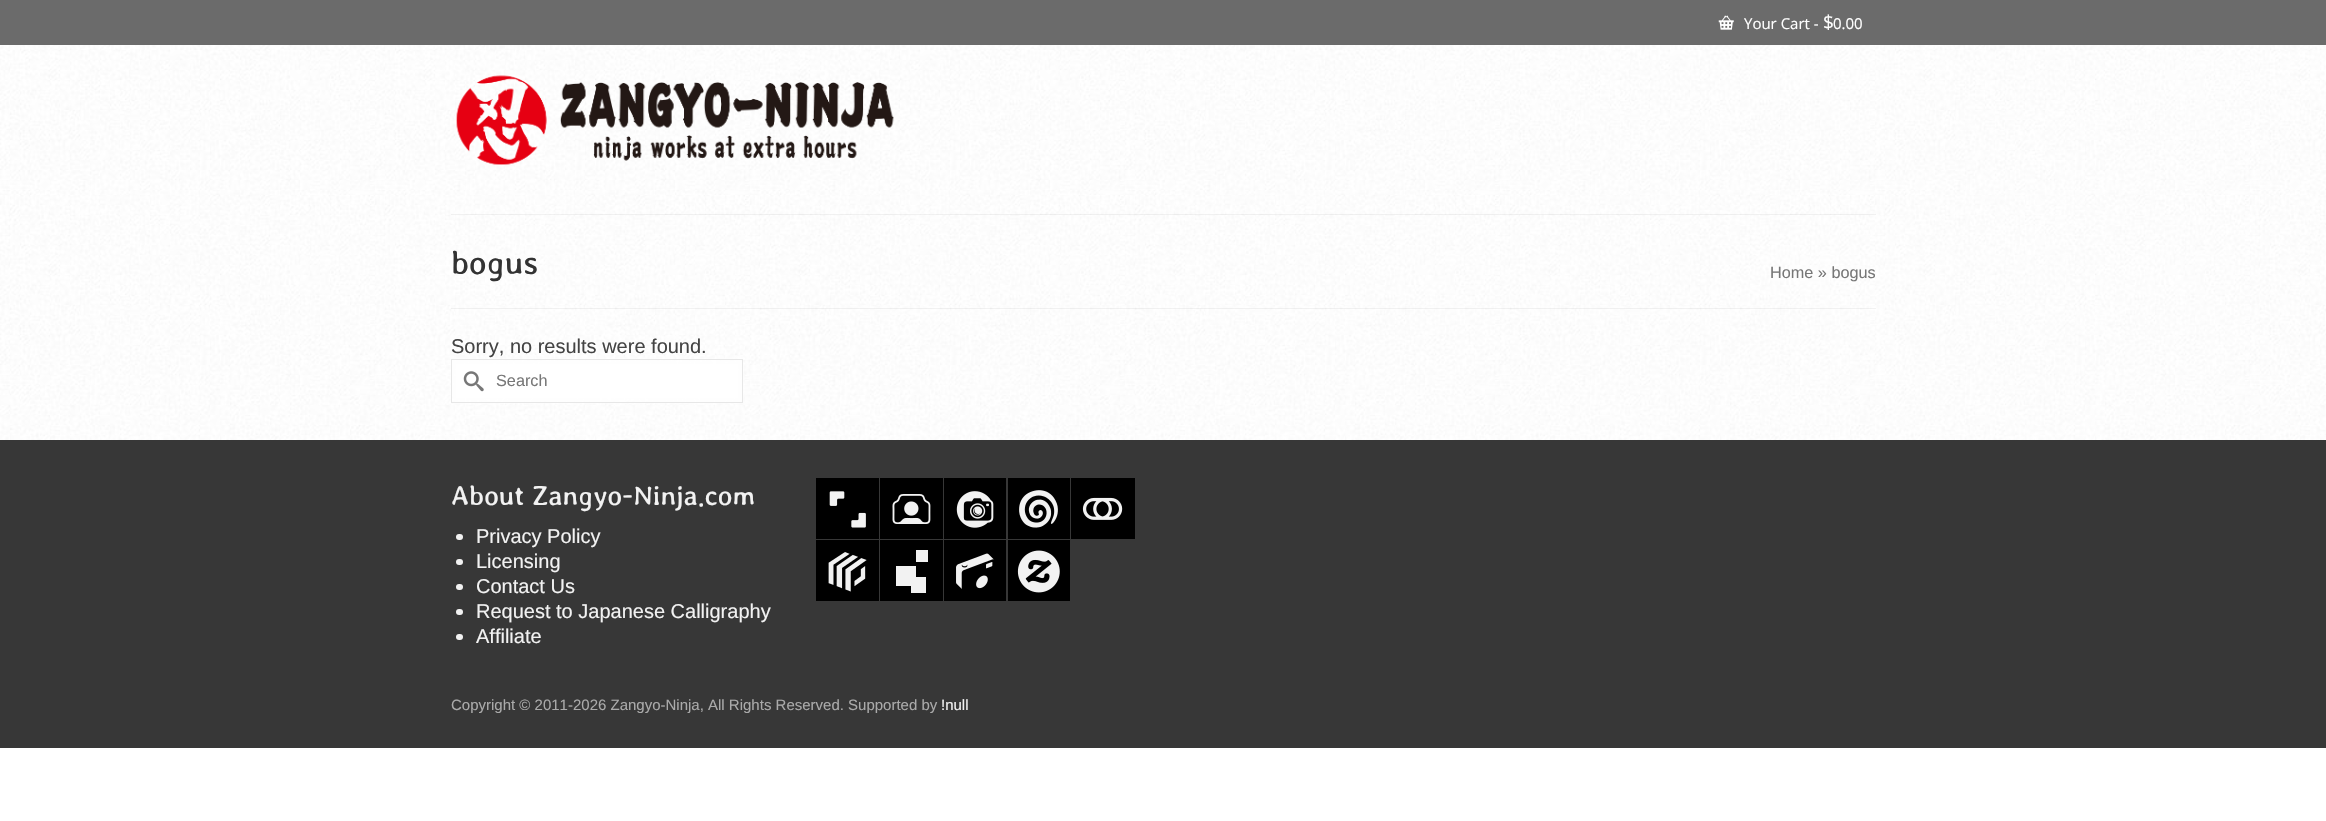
void draw(SkCanvas* canvas) {
  SkPaint paint;
  paint.setAntiAlias(true);
  auto face = [&](const char* family, int weight, float size, bool italic = false) {
    SkFontStyle style(weight, SkFontStyle::kNormal_Width,
      italic ? SkFontStyle::kItalic_Slant : SkFontStyle::kUpright_Slant);
    SkFont result(fontMgr->matchFamilyStyle(family, style), size);
    result.setSubpixel(true);
    return result;
  };
  auto paste = [&](const char* path, float x, float y, float w, float h) {
    auto image = SkImages::DeferredFromEncodedData(SkData::MakeFromFileName(path));
    canvas->drawImageRect(image, SkRect::MakeXYWH(x, y, w, h), SkSamplingOptions());
  };
  auto shape = [&](const char* data, bool evenOdd = false) {
    SkPath result = *SkParsePath::FromSVGString(data);
    if (evenOdd) result.setFillType(SkPathFillType::kEvenOdd);
    return result;
  };
  canvas->clear(0xffffffff);
  paste("img/1.png", 0, 45, 2326, 150);
  paint.setColor(0xff6b6b6b);
  canvas->drawRect(SkRect::MakeXYWH(0, 0, 2326, 45), paint);
  paste("img/2.png", 1718, 15, 16, 15);
  paste("img/3.png", 456, 75, 438, 90);
  paste("img/4.png", 0, 195, 2326, 245);
  paint.setColor(0x0d000000);
  canvas->drawRect(SkRect::MakeXYWH(451, 214, 1425, 1), paint);
  canvas->drawRect(SkRect::MakeXYWH(451, 308, 1425, 1), paint);
  paint.setColor(0xffffffff);
  paint.setMaskFilter(SkMaskFilter::MakeBlur(kNormal_SkBlurStyle, 2));
  canvas->drawRect(SkRect::MakeXYWH(451, 359, 292, 44), paint);
  paint.setMaskFilter(nullptr);
  paint.setStroke(true);
  paint.setStrokeWidth(1);
  paint.setColor(0xffe7e7e7);
  canvas->drawRect(SkRect::MakeXYWH(451.5f, 359.5f, 291, 43), paint);
  paste("img/5.png", 463, 371, 21, 21);
  paint.setStroke(false);
  paint.setColor(0xff373737);
  canvas->drawRect(SkRect::MakeXYWH(0, 440, 2326, 308), paint);
  paint.setColor(0xfff2f2f2);
  canvas->drawRoundRect(SkRect::MakeXYWH(456, 534, 7, 6), 3, 3, paint);
  canvas->drawRoundRect(SkRect::MakeXYWH(456, 559, 7, 6), 3, 3, paint);
  canvas->drawRoundRect(SkRect::MakeXYWH(456, 584, 7, 6), 3, 3, paint);
  canvas->drawRoundRect(SkRect::MakeXYWH(456, 609, 7, 6), 3, 3, paint);
  canvas->drawRoundRect(SkRect::MakeXYWH(456, 634, 7, 6), 3, 3, paint);
  paint.setColor(0xff000000);
  canvas->drawRect(SkRect::MakeXYWH(816, 478, 63, 61), paint);
  paste("img/6.png", 829, 491, 37, 37);
  canvas->drawRect(SkRect::MakeXYWH(880, 478, 63, 61), paint);
  paste("img/7.png", 892, 494, 39, 30);
  canvas->drawRect(SkRect::MakeXYWH(944, 478, 62, 61), paint);
  paste("img/8.png", 956, 491, 38, 37);
  canvas->drawRect(SkRect::MakeXYWH(1008, 478, 62, 61), paint);
  paste("img/9.png", 1019, 490, 39, 38);
  canvas->drawRect(SkRect::MakeXYWH(1071, 478, 64, 61), paint);
  paste("img/10.png", 1082, 497, 41, 23);
  canvas->drawRect(SkRect::MakeXYWH(816, 540, 63, 61), paint);
  paste("img/11.png", 828, 552, 39, 40);
  canvas->drawRect(SkRect::MakeXYWH(880, 540, 63, 61), paint);
  paint.setColor(0xfff2f2f2);
  canvas->drawPath(shape("M916 577V566H896V586H911V593H926V577ZM916 550H928V562H916Z"), paint);
  paint.setColor(0xff000000);
  canvas->drawRect(SkRect::MakeXYWH(944, 540, 62, 61), paint);
  paste("img/12.png", 956, 553, 38, 36);
  canvas->drawRect(SkRect::MakeXYWH(1008, 540, 62, 61), paint);
  paste("img/13.png", 1017, 550, 43, 43);
  auto f0 = face("Open Sans", 400, 15);
  paint.setColor(0xffffffff);
  canvas->drawString("Your Cart -", 1744, 29, f0, paint);
  auto f1 = face("Open Sans", 400, 19);
  canvas->drawString("$", 1823, 29, f1, paint);
  canvas->drawString("0.00", 1833, 29, f0, paint);
  auto f2 = face("Stylish", 400, 37.5f);
  paint.setColor(0xff333333);
  canvas->drawString("bogus", 451, 274, f2, paint);
  auto f3 = face("Liberation Sans", 400, 16.25f);
  paint.setColor(0xff777777);
  canvas->drawString("Home » bogus", 1770, 278, f3, paint);
  auto f4 = face("Liberation Sans", 400, 20);
  paint.setColor(0xff444444);
  canvas->drawString("Sorry, no results were found.", 451, 353, f4, paint);
  paint.setColor(0xff777777);
  canvas->drawString("Search", 496, 386, f3, paint);
  auto f5 = face("Stylish", 400, 31.25f);
  paint.setColor(0xfff2f2f2);
  canvas->drawString("About Zangyo-Ninja.com", 451, 505, f5, paint);
  {
    const struct { const char* s; float x, y; } items[] = {
      {"Privacy Policy", 476, 543},
      {"Licensing", 476, 568},
      {"Contact Us", 476, 593},
      {"Request to Japanese Calligraphy", 476, 618},
      {"Affiliate", 476, 643},
    };
    for (auto [s, x, y] : items) {
      canvas->drawString(s, x, y, f4, paint);
    }
  }
  auto f6 = face("Liberation Sans", 400, 15);
  paint.setColor(0xffaaaaaa);
  canvas->drawString("Copyright © 2011-2026 Zangyo-Ninja, All Rights Reserved. Supported by", 451, 710, f6, paint);
  paint.setColor(0xfff2f2f2);
  canvas->drawString("!null", 941, 710, f6, paint);
}
